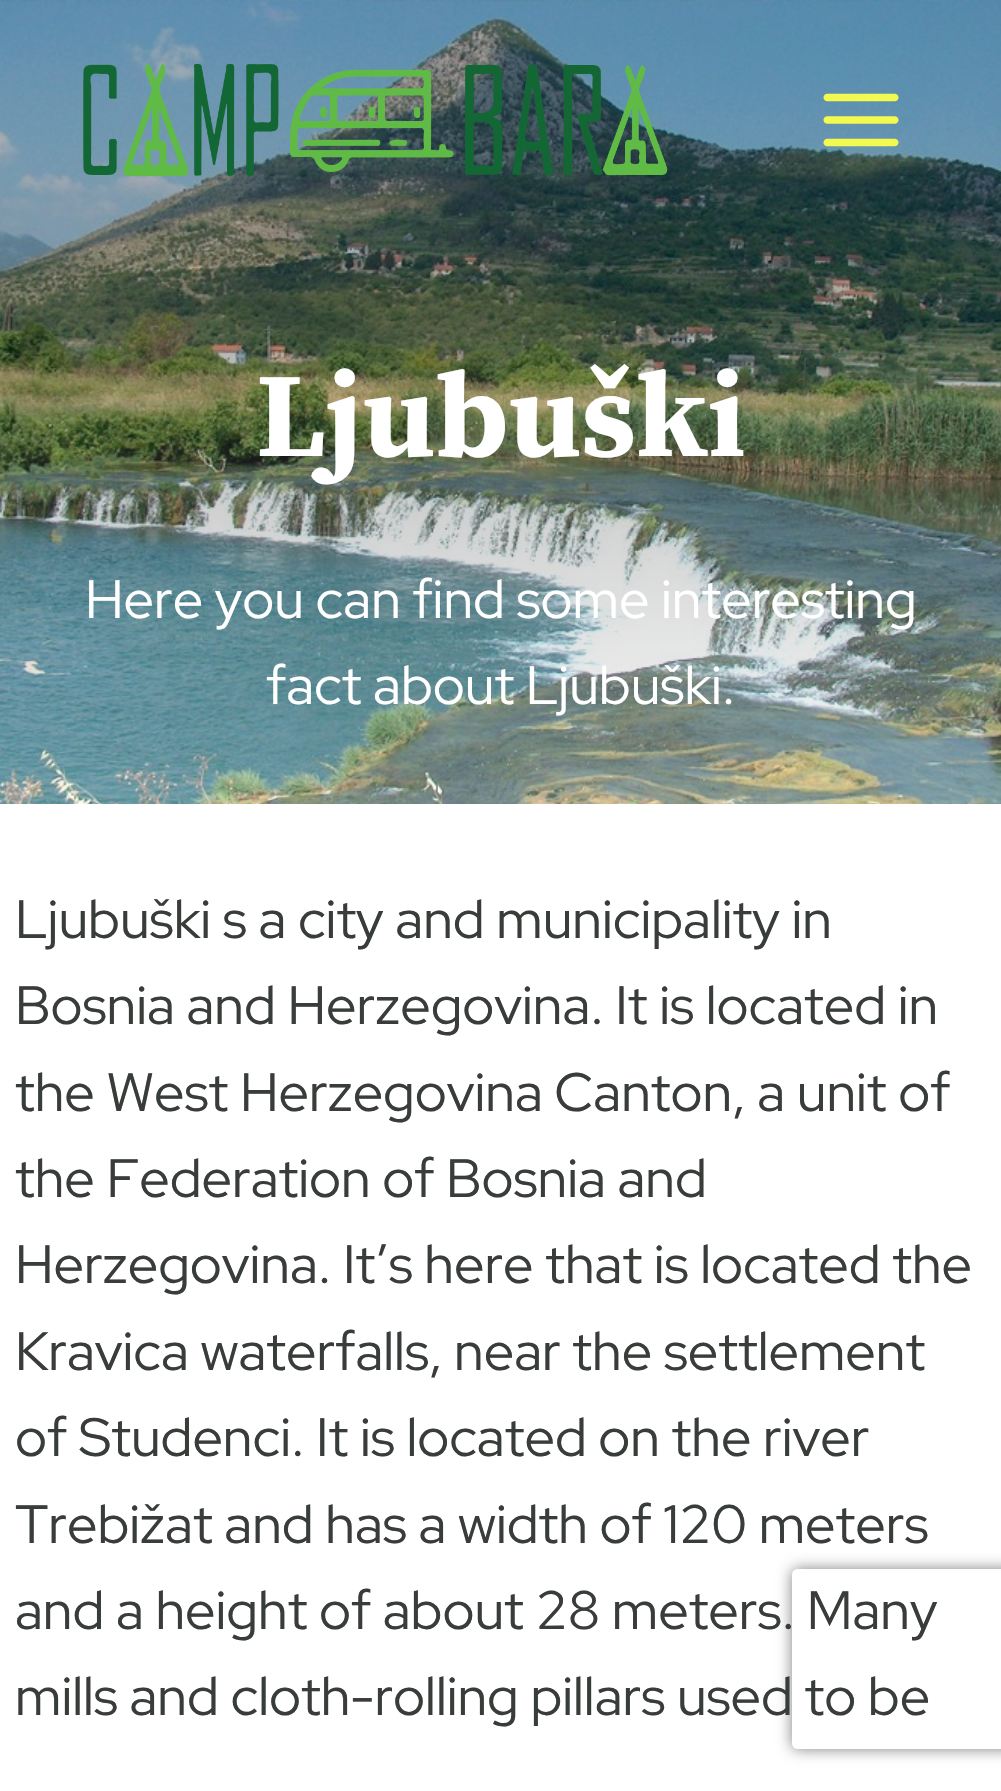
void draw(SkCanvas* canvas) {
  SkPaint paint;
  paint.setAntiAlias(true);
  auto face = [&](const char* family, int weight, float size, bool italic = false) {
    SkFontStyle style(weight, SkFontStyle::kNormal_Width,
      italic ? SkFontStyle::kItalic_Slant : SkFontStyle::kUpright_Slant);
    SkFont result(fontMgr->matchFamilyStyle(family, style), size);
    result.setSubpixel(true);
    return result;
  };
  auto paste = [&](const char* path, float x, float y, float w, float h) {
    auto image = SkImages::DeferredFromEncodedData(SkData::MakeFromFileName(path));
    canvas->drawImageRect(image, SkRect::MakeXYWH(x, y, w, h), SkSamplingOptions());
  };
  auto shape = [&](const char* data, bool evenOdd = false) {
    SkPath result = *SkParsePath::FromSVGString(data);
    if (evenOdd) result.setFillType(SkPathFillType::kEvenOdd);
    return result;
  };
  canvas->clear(0xffffffff);
  paste("img/3.png", 0, 0, 1001, 804);
  paste("img/1.png", 83, 63, 585, 113);
  paste("img/2.png", 823, 93, 76, 54);
  canvas->save();
  canvas->clipPath(shape("M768 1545H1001V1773H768ZM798 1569H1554C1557.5 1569 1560 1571.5 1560 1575V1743C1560 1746.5 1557.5 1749 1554 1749H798C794.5 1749 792 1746.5 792 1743V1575C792 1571.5 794.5 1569 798 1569Z", true), true);
  paint.setColor(0xff808080);
  paint.setMaskFilter(SkMaskFilter::MakeBlur(kNormal_SkBlurStyle, 7.5f));
  canvas->drawRoundRect(SkRect::MakeXYWH(792, 1569, 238, 180), 6, 6, paint);
  paint.setMaskFilter(nullptr);
  canvas->restore();
  auto f0 = face("Source Serif Pro", 700, 120);
  paint.setColor(0xffffffff);
  canvas->drawString("Ljubuški", 256, 456, f0, paint);
  auto f1 = face("Red Hat Display", 400, 54);
  canvas->drawString("Here you can find some interesting", 85, 618, f1, paint);
  canvas->drawString("fact about Ljubuški.", 266, 704, f1, paint);
  paint.setColor(0xff393d3a);
  {
    const struct { const char* s; float x, y; } items[] = {
      {"Ljubuški s a city and municipality in", 15, 938},
      {"Bosnia and Herzegovina. It is located in", 15, 1024},
      {"the West Herzegovina Canton, a unit of", 15, 1111},
      {"the Federation of Bosnia and", 15, 1197},
      {"Herzegovina. It’s here that is located the", 15, 1283},
      {"Kravica waterfalls, near the settlement", 15, 1370},
      {"of Studenci. It is located on the river", 15, 1456},
      {"Trebižat and has a width of 120 meters", 15, 1543},
      {"and a height of about 28 meters. Many", 15, 1629},
      {"mills and cloth-rolling pillars used to be", 15, 1715},
    };
    for (auto [s, x, y] : items) {
      canvas->drawString(s, x, y, f1, paint);
    }
  }
}
